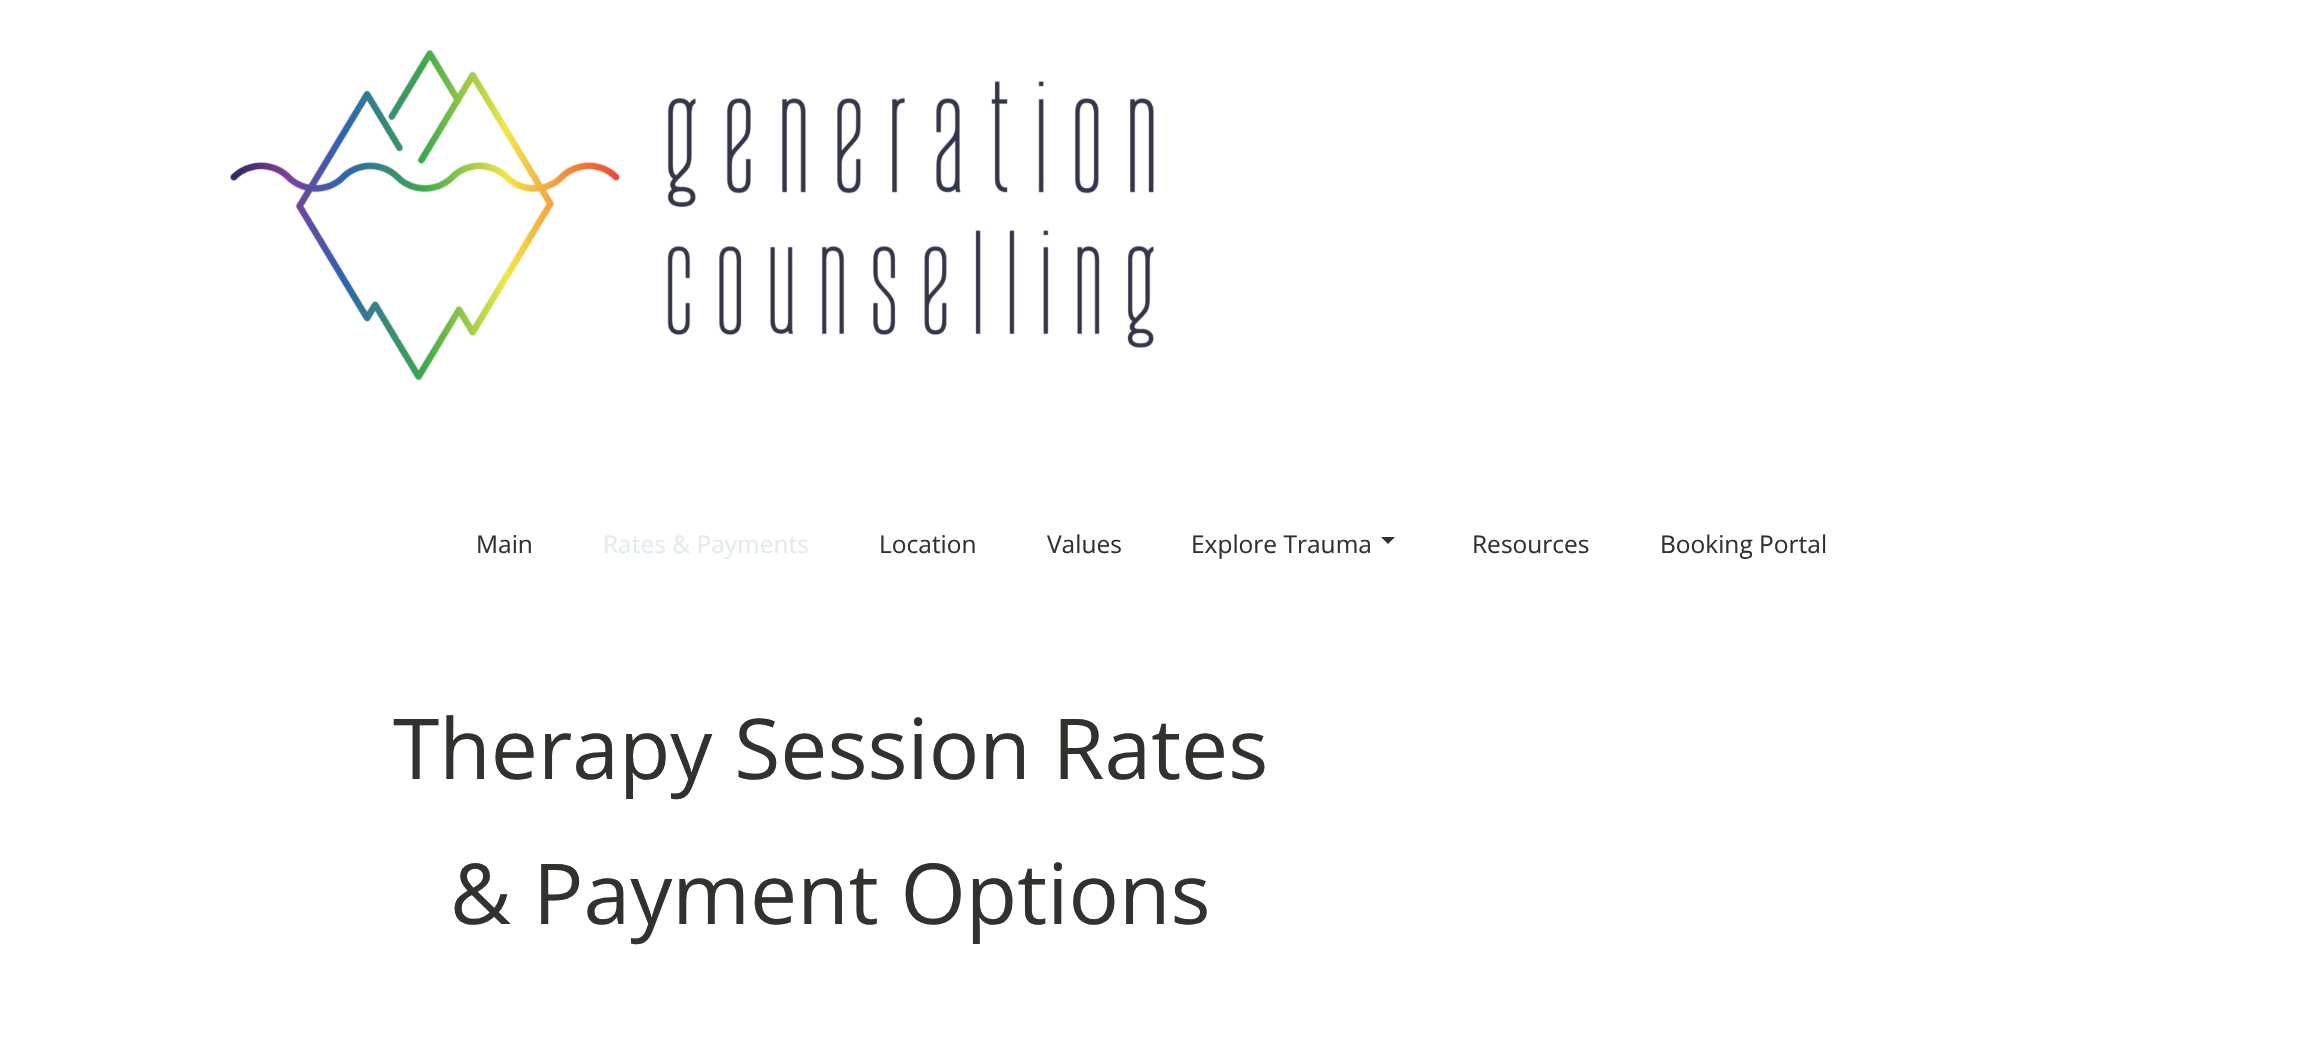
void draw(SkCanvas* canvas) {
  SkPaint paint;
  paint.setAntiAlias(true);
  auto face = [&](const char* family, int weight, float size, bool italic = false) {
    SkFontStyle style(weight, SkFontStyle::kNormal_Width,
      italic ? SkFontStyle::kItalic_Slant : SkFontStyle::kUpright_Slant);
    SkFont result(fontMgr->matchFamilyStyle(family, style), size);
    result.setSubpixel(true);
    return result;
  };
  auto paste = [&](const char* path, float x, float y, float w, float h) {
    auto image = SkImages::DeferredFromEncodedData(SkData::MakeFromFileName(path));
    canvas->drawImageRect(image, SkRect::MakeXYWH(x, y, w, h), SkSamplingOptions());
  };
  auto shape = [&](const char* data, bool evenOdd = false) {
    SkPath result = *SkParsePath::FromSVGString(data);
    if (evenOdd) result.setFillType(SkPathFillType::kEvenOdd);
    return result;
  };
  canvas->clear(0xffffffff);
  paste("img/1.png", 230, 49, 924, 332);
  paint.setColor(0xff33312e);
  canvas->drawPath(shape("M1381 537H1395L1388 544Z"), paint);
  auto f0 = face("Open Sans", 400, 24.5f);
  canvas->drawString("Main", 476, 553, f0, paint);
  paint.setColor(0xffe1ebed);
  canvas->drawString("Rates & Payments", 603, 553, f0, paint);
  paint.setColor(0xff33312e);
  {
    const struct { const char* s; float x, y; } items[] = {
      {"Location", 879, 553},
      {"Values", 1047, 553},
      {"Explore Trauma", 1191, 553},
      {"Resources", 1472, 553},
      {"Booking Portal", 1660, 553},
    };
    for (auto [s, x, y] : items) {
      canvas->drawString(s, x, y, f0, paint);
    }
  }
  auto f1 = face("Open Sans", 400, 84);
  canvas->drawString("Therapy Session Rates", 393, 779, f1, paint);
  canvas->drawString("& Payment Options", 450, 924, f1, paint);
}
